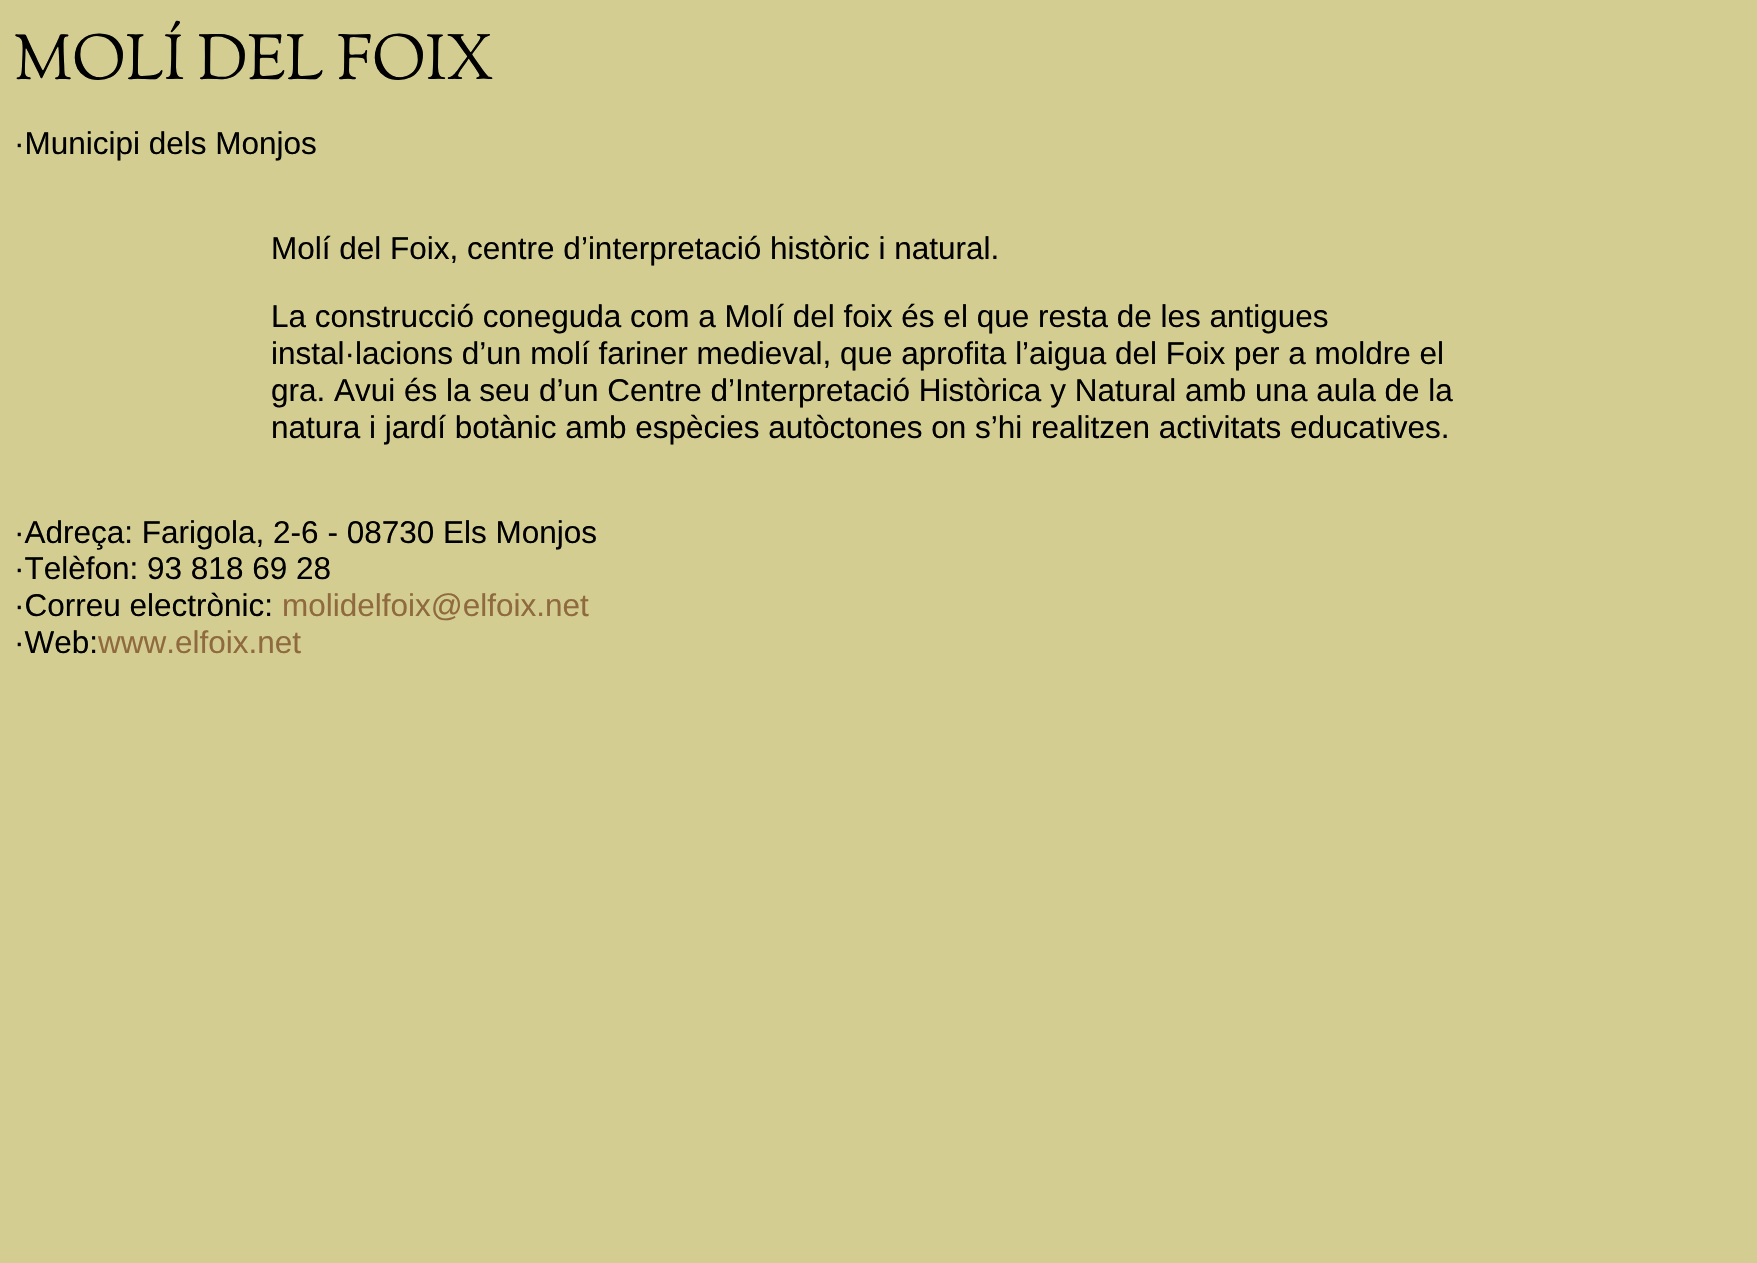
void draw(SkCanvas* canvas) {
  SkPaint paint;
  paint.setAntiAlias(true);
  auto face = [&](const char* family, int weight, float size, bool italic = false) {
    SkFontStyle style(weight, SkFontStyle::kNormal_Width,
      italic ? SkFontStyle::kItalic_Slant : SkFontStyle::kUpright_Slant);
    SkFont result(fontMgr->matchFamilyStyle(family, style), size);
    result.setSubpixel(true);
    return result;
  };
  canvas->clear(0xffd3cd91);
  auto f0 = face("OFL Sorts Mill Goudy TT", 500, 63);
  paint.setColor(0xff000000);
  canvas->drawString("MOLÍ DEL FOIX", 14, 79, f0, paint);
  auto f1 = face("Liberation Sans", 400, 31.5f);
  {
    const struct { const char* s; float x, y; } items[] = {
      {"·Municipi dels Monjos", 14, 154},
      {"Molí del Foix, centre d’interpretació històric i natural.", 271, 259},
      {"La construcció coneguda com a Molí del foix és el que resta de les antigues", 271, 327},
      {"instal·lacions d’un molí fariner medieval, que aprofita l’aigua del Foix per a moldre el", 271, 364},
      {"gra. Avui és la seu d’un Centre d’Interpretació Històrica y Natural amb una aula de la", 271, 401},
      {"natura i jardí botànic amb espècies autòctones on s’hi realitzen activitats educatives.", 271, 438},
      {"·Adreça: Farigola, 2-6 - 08730 Els Monjos", 14, 543},
      {"·Telèfon: 93 818 69 28", 14, 579},
      {"·Correu electrònic:", 14, 616},
    };
    for (auto [s, x, y] : items) {
      canvas->drawString(s, x, y, f1, paint);
    }
  }
  paint.setColor(0xff8f6a3e);
  canvas->drawString("molidelfoix@elfoix.net", 282, 616, f1, paint);
  paint.setColor(0xff000000);
  canvas->drawString("·Web:", 14, 653, f1, paint);
  paint.setColor(0xff8f6a3e);
  canvas->drawString("www.elfoix.net", 98, 653, f1, paint);
}
